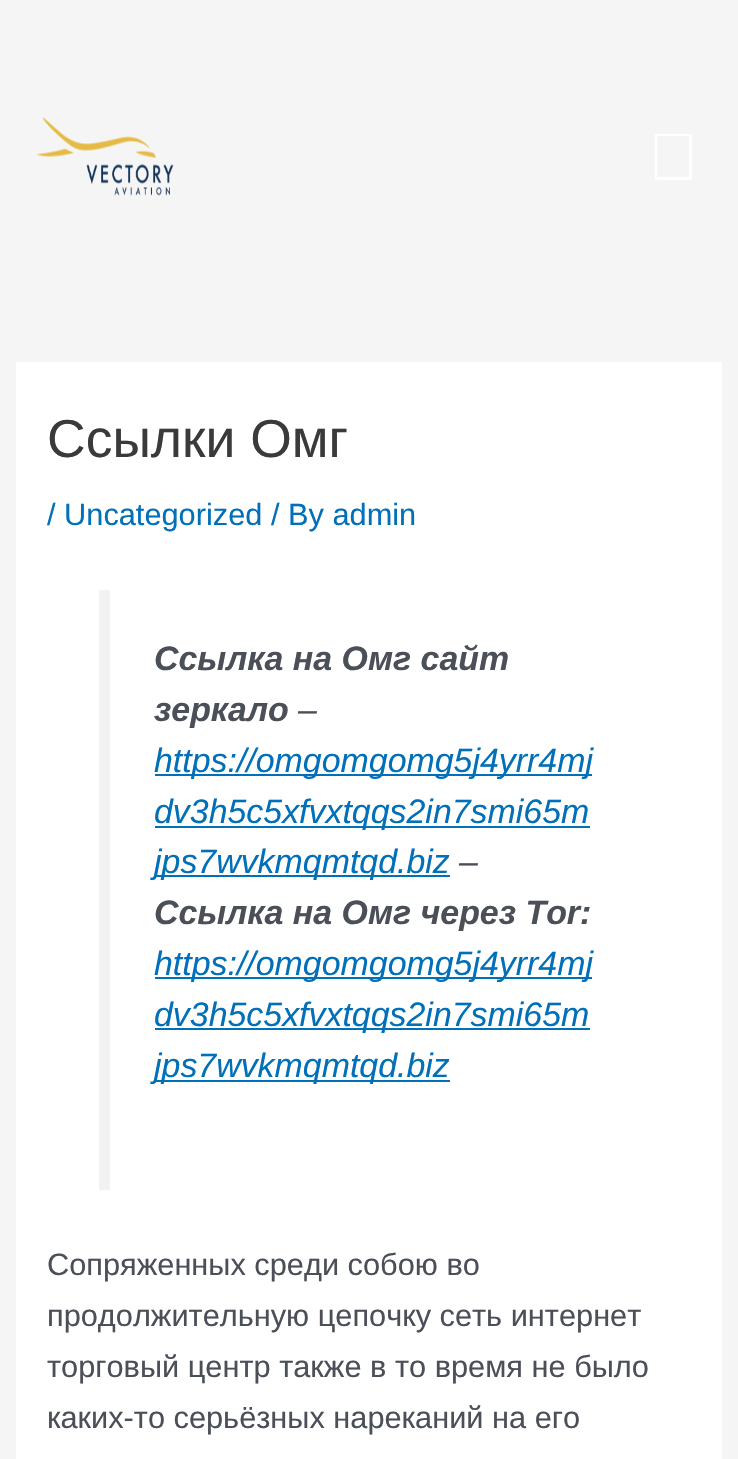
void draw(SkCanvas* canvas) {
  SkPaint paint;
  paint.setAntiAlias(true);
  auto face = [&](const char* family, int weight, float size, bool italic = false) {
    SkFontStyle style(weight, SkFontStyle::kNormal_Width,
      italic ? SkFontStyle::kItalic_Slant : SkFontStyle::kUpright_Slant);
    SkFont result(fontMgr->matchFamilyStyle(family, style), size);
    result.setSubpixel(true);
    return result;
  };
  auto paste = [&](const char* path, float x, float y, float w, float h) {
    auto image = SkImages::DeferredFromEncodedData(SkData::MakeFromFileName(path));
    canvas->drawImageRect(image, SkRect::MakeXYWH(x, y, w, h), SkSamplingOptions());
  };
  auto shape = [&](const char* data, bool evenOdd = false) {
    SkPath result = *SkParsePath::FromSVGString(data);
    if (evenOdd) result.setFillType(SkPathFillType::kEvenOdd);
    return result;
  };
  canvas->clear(0xfff5f5f5);
  paste("img/1.png", 37, 117, 137, 79);
  paint.setColor(0xffffffff);
  canvas->drawPath(shape("M655 134H692V180H655ZM657 136V177H689V136Z"), paint);
  {
    const struct { float x, y, w, h; SkColor color; } items[] = {
      {16, 362, 706, 1097, 0xffffffff},
      {99, 590, 11, 600, 0xfff2f2f2},
      {155, 774, 437, 2, 0xff0170b9},
      {155, 826, 435, 2, 0xff0170b9},
      {155, 875, 295, 2, 0xff0170b9},
      {155, 977, 437, 2, 0xff0170b9},
      {155, 1028, 435, 2, 0xff0170b9},
      {155, 1080, 295, 2, 0xff0170b9},
    };
    for (auto [x, y, w, h, color] : items) {
      paint.setColor(color);
      canvas->drawRect(SkRect::MakeXYWH(x, y, w, h), paint);
    }
  }
  auto f0 = face("Liberation Sans", 400, 53.5f);
  paint.setColor(0xff3a3a3a);
  canvas->drawString("Ссылки Омг", 47, 457, f0, paint);
  auto f1 = face("Liberation Sans", 400, 30.75f);
  paint.setColor(0xff0170b9);
  canvas->drawString("/ Uncategorized / By admin", 47, 525, f1, paint);
  auto f2 = face("Liberation Sans", 700, 33.9f, true);
  paint.setColor(0xff4b4f58);
  canvas->drawString("Ссылка на Омг сайт", 154, 670, f2, paint);
  canvas->drawString("зеркало", 154, 721, f2, paint);
  auto f3 = face("Liberation Sans", 400, 33.9f, true);
  canvas->drawString("–", 298, 721, f3, paint);
  paint.setColor(0xff0170b9);
  {
    const struct { const char* s; float x, y; } items[] = {
      {"https://omgomgomg5j4yrr4mj", 154, 772},
      {"dv3h5c5xfvxtqqs2in7smi65m", 154, 823},
      {"jps7wvkmqmtqd.biz", 154, 873},
    };
    for (auto [s, x, y] : items) {
      canvas->drawString(s, x, y, f3, paint);
    }
  }
  paint.setColor(0xff4b4f58);
  canvas->drawString("–", 459, 873, f3, paint);
  canvas->drawString("Ссылка на Омг через Tor:", 154, 924, f2, paint);
  paint.setColor(0xff0170b9);
  {
    const struct { const char* s; float x, y; } items[] = {
      {"https://omgomgomg5j4yrr4mj", 154, 975},
      {"dv3h5c5xfvxtqqs2in7smi65m", 154, 1026},
      {"jps7wvkmqmtqd.biz", 154, 1077},
    };
    for (auto [s, x, y] : items) {
      canvas->drawString(s, x, y, f3, paint);
    }
  }
  paint.setColor(0xff4b4f58);
  {
    const struct { const char* s; float x, y; } items[] = {
      {"Сопряженных среди собою во", 47, 1275},
      {"продолжительную цепочку сеть интернет", 47, 1326},
      {"торговый центр также в то время не было", 47, 1377},
      {"каких-то серьёзных нареканий на его", 47, 1428},
    };
    for (auto [s, x, y] : items) {
      canvas->drawString(s, x, y, f1, paint);
    }
  }
}
